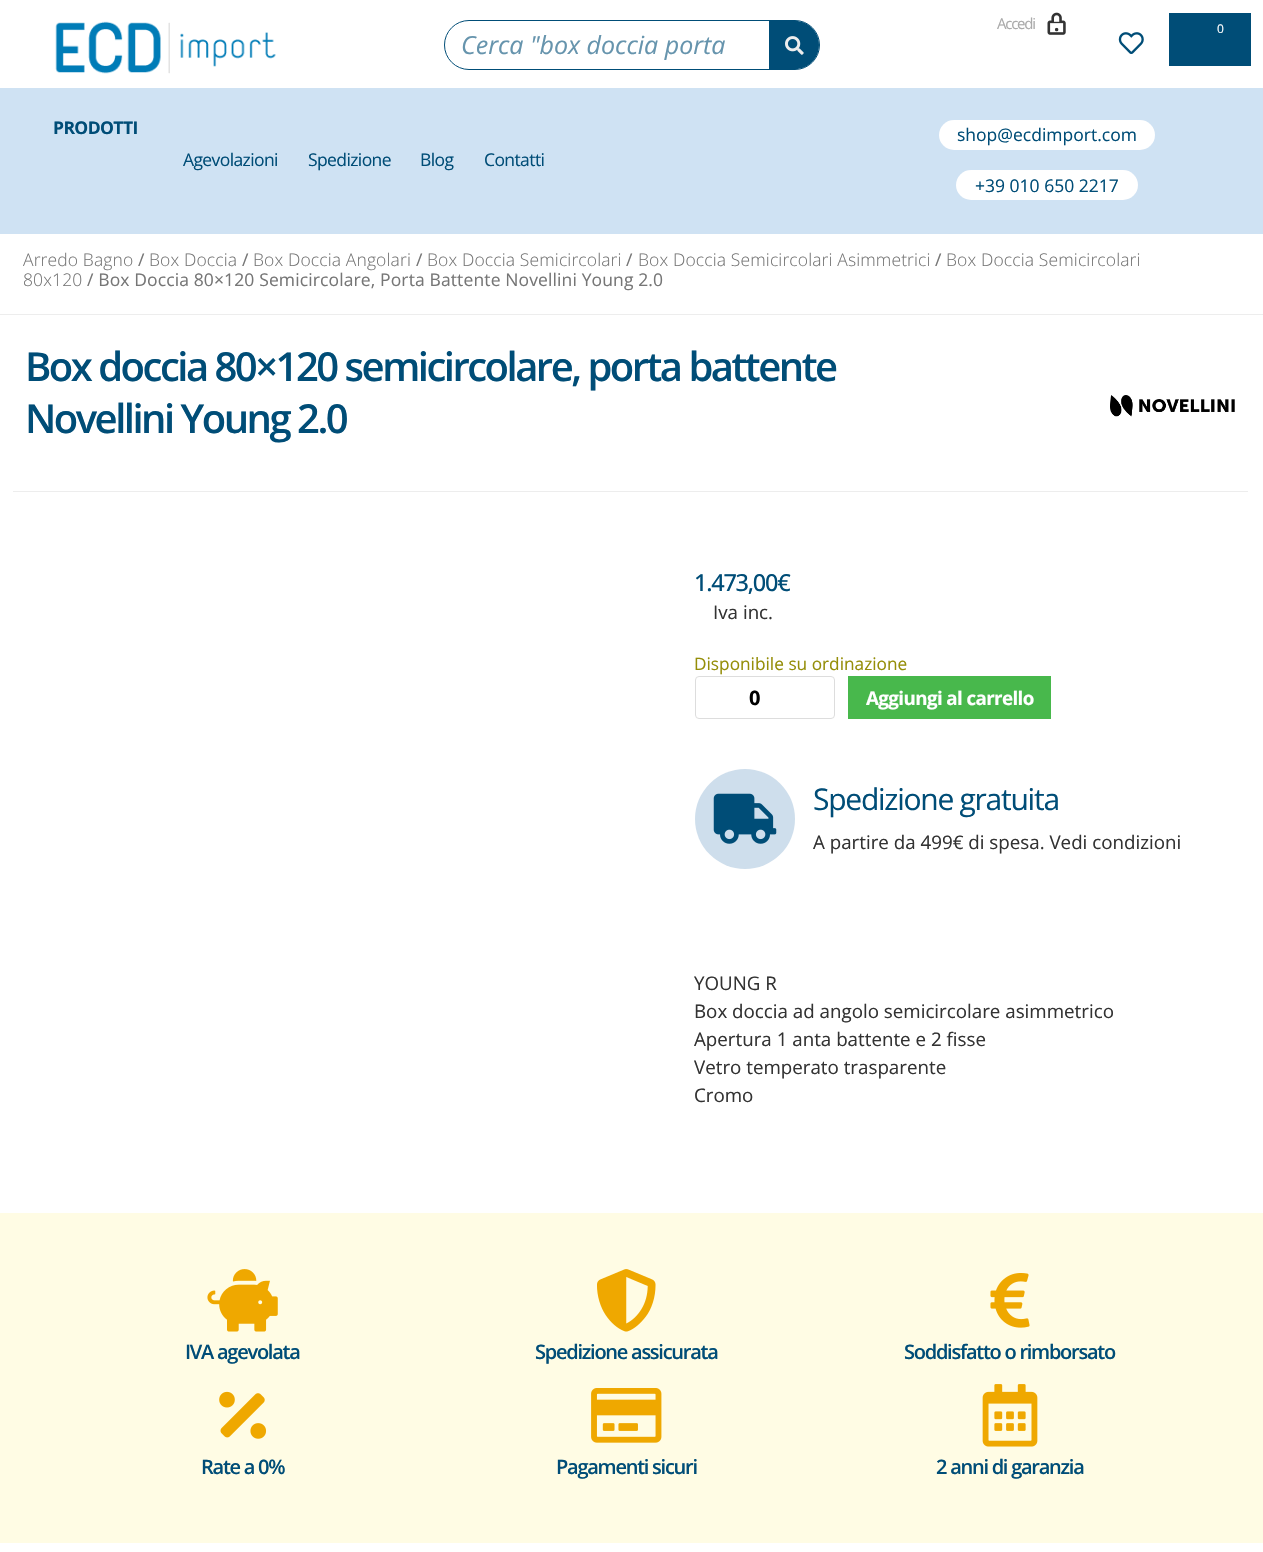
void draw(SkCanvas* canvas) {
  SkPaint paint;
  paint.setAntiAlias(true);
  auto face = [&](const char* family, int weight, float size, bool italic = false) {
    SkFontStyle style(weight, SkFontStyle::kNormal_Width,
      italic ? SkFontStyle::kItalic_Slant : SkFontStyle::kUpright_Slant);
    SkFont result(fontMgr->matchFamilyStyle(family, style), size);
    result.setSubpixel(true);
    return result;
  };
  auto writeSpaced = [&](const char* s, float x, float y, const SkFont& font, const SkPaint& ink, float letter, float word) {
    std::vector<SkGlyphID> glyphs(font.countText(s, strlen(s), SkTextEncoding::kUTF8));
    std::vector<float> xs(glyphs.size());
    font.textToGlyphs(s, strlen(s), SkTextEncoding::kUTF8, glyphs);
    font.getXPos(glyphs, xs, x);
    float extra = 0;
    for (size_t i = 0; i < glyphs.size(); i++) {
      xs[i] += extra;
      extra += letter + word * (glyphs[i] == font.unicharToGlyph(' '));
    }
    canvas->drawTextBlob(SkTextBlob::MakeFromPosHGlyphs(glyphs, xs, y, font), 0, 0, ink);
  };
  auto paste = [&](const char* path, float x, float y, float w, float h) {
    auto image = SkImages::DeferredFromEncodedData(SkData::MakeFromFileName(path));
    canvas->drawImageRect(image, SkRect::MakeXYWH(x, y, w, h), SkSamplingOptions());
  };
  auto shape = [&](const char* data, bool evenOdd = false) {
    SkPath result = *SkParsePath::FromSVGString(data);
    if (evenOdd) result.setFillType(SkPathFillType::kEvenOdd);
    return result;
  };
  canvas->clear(0xffffffff);
  paste("img/1.png", 55, 21, 221, 53);
  paint.setStroke(true);
  paint.setStrokeWidth(1);
  paint.setColor(0xff004d77);
  canvas->drawRoundRect(SkRect::MakeXYWH(444.5f, 20.5f, 375, 49), 24.5f, 24.5f, paint);
  paint.setStroke(false);
  canvas->drawPath(shape("M769 21H795C808.5 21 819 31.5 819 45C819 58.5 808.5 69 795 69H769Z"), paint);
  paste("img/2.png", 785, 36, 19, 19);
  paste("img/3.png", 1047, 12, 19, 23);
  canvas->drawRect(SkRect::MakeXYWH(1169, 13, 82, 53), paint);
  paste("img/4.png", 1118, 32, 26, 22);
  paint.setColor(0xffcfe2f3);
  canvas->drawRect(SkRect::MakeXYWH(0, 88, 1263, 146), paint);
  paint.setColor(0xffffffff);
  canvas->drawRoundRect(SkRect::MakeXYWH(939, 120, 216, 30), 15, 15, paint);
  canvas->drawRoundRect(SkRect::MakeXYWH(956, 170, 182, 30), 15, 15, paint);
  paint.setColor(0xffededed);
  canvas->drawRect(SkRect::MakeXYWH(0, 314, 1263, 1), paint);
  canvas->drawRect(SkRect::MakeXYWH(13, 491, 1235, 1), paint);
  paste("img/5.png", 1110, 395, 125, 22);
  paint.setStroke(true);
  paint.setColor(0xffdddddd);
  canvas->drawRoundRect(SkRect::MakeXYWH(695.5f, 676.5f, 139, 42), 3.5f, 3.5f, paint);
  paint.setStroke(false);
  paint.setColor(0xff48b84c);
  canvas->drawRect(SkRect::MakeXYWH(848, 676, 203, 43), paint);
  paint.setColor(0xffcedeec);
  canvas->drawCircle(745, 819, 50, paint);
  paste("img/6.png", 713, 793, 64, 51);
  paint.setColor(0xfffffce4);
  canvas->drawRect(SkRect::MakeXYWH(0, 1213, 1263, 330), paint);
  paste("img/7.png", 207, 1269, 71, 63);
  paste("img/8.png", 597, 1269, 59, 63);
  paste("img/9.png", 990, 1273, 40, 55);
  paste("img/10.png", 219, 1391, 48, 48);
  paste("img/11.png", 591, 1388, 71, 55);
  paste("img/12.png", 982, 1384, 56, 63);
  auto f0 = face("Open Sans", 400, 25, true);
  paint.setColor(0xff6694ad);
  canvas->drawString("Cerca \"box doccia porta", 461, 54, f0, paint);
  auto f1 = face("Open Sans", 400, 15);
  paint.setColor(0xffaaaaaa);
  writeSpaced("Accedi", 997, 29, f1, paint, -1.25f, 0);
  auto f2 = face("Open Sans", 400, 12);
  paint.setColor(0xffffffff);
  writeSpaced("0", 1217, 33, f2, paint, -1.25f, 0);
  auto f3 = face("Open Sans", 700, 17.5f);
  paint.setColor(0xff004d77);
  writeSpaced("PRODOTTI", 53, 134, f3, paint, -0.6f, 0);
  auto f4 = face("Open Sans", 400, 17.5f);
  {
    const struct { const char* s; float x, y; } items[] = {
      {"Agevolazioni", 183, 166},
      {"Spedizione", 308, 166},
      {"Blog", 420, 166},
      {"Contatti", 484, 166},
    };
    for (auto [s, x, y] : items) {
      writeSpaced(s, x, y, f4, paint, -0.6f, 0);
    }
  }
  canvas->drawString("shop@ecdimport.com", 957, 141, f4, paint);
  canvas->drawString("+39 010 650 2217", 975, 192, f4, paint);
  auto f5 = face("Open Sans", 300, 17.5f);
  paint.setColor(0xff767676);
  writeSpaced("Arredo Bagno", 23, 266, f5, paint, 0.12f, 0);
  writeSpaced("/", 138, 266, f4, paint, 0.12f, 0);
  writeSpaced("Box Doccia", 149, 266, f5, paint, 0.12f, 0);
  writeSpaced("/", 242, 266, f4, paint, 0.12f, 0);
  writeSpaced("Box Doccia Angolari", 253, 266, f5, paint, 0.12f, 0);
  writeSpaced("/", 416, 266, f4, paint, 0.12f, 0);
  writeSpaced("Box Doccia Semicircolari", 427, 266, f5, paint, 0.12f, 0);
  writeSpaced("/", 626, 266, f4, paint, 0.12f, 0);
  writeSpaced("Box Doccia Semicircolari Asimmetrici", 638, 266, f5, paint, 0.12f, 0);
  writeSpaced("/", 935, 266, f4, paint, 0.12f, 0);
  writeSpaced("Box Doccia Semicircolari", 946, 266, f5, paint, 0.12f, 0);
  writeSpaced("80x120", 23, 286, f5, paint, 0.12f, 0);
  writeSpaced("/ Box Doccia 80×120 Semicircolare, Porta Battente Novellini Young 2.0", 87, 286, f4, paint, 0.12f, 0);
  auto f6 = face("Open Sans", 600, 40);
  paint.setColor(0xff004d77);
  writeSpaced("Box doccia 80×120 semicircolare, porta battente", 25, 381, f6, paint, -2.5f, 0);
  writeSpaced("Novellini Young 2.0", 25, 433, f6, paint, -2.5f, 0);
  auto f7 = face("Open Sans", 500, 23.5f);
  writeSpaced("1.473,00€", 694, 591, f7, paint, -1.25f, 0);
  auto f8 = face("Open Sans", 400, 18.75f);
  paint.setColor(0xff333333);
  canvas->drawString("Iva inc.", 713, 619, f8, paint);
  auto f9 = face("Open Sans", 400, 17.25f);
  paint.setColor(0xff958e09);
  canvas->drawString("Disponibile su ordinazione", 694, 670, f9, paint);
  auto f10 = face("Open Sans", 700, 20);
  paint.setColor(0xff000000);
  canvas->drawString("0", 749, 705, f10, paint);
  auto f11 = face("Open Sans", 700, 18.75f);
  paint.setColor(0xffffffff);
  writeSpaced("Aggiungi al carrello", 866, 705, f11, paint, -0.6f, 0);
  auto f12 = face("Open Sans", 400, 30);
  paint.setColor(0xff004d77);
  writeSpaced("Spedizione gratuita", 813, 810, f12, paint, -1.25f, 0);
  paint.setColor(0xff333333);
  {
    const struct { const char* s; float x, y; } items[] = {
      {"A partire da 499€ di spesa. Vedi condizioni", 813, 849},
      {"YOUNG R", 694, 990},
      {"Box doccia ad angolo semicircolare asimmetrico", 694, 1018},
      {"Apertura 1 anta battente e 2 fisse", 694, 1046},
      {"Vetro temperato trasparente", 694, 1074},
      {"Cromo", 694, 1102},
    };
    for (auto [s, x, y] : items) {
      canvas->drawString(s, x, y, f8, paint);
    }
  }
  auto f13 = face("Open Sans", 600, 20);
  paint.setColor(0xff004d77);
  {
    const struct { const char* s; float x, y; } items[] = {
      {"IVA agevolata", 185, 1359},
      {"Spedizione assicurata", 535, 1359},
      {"Soddisfatto o rimborsato", 904, 1359},
      {"Rate a 0%", 201, 1474},
      {"Pagamenti sicuri", 556, 1474},
      {"2 anni di garanzia", 936, 1474},
    };
    for (auto [s, x, y] : items) {
      writeSpaced(s, x, y, f13, paint, -1.25f, 0);
    }
  }
}
